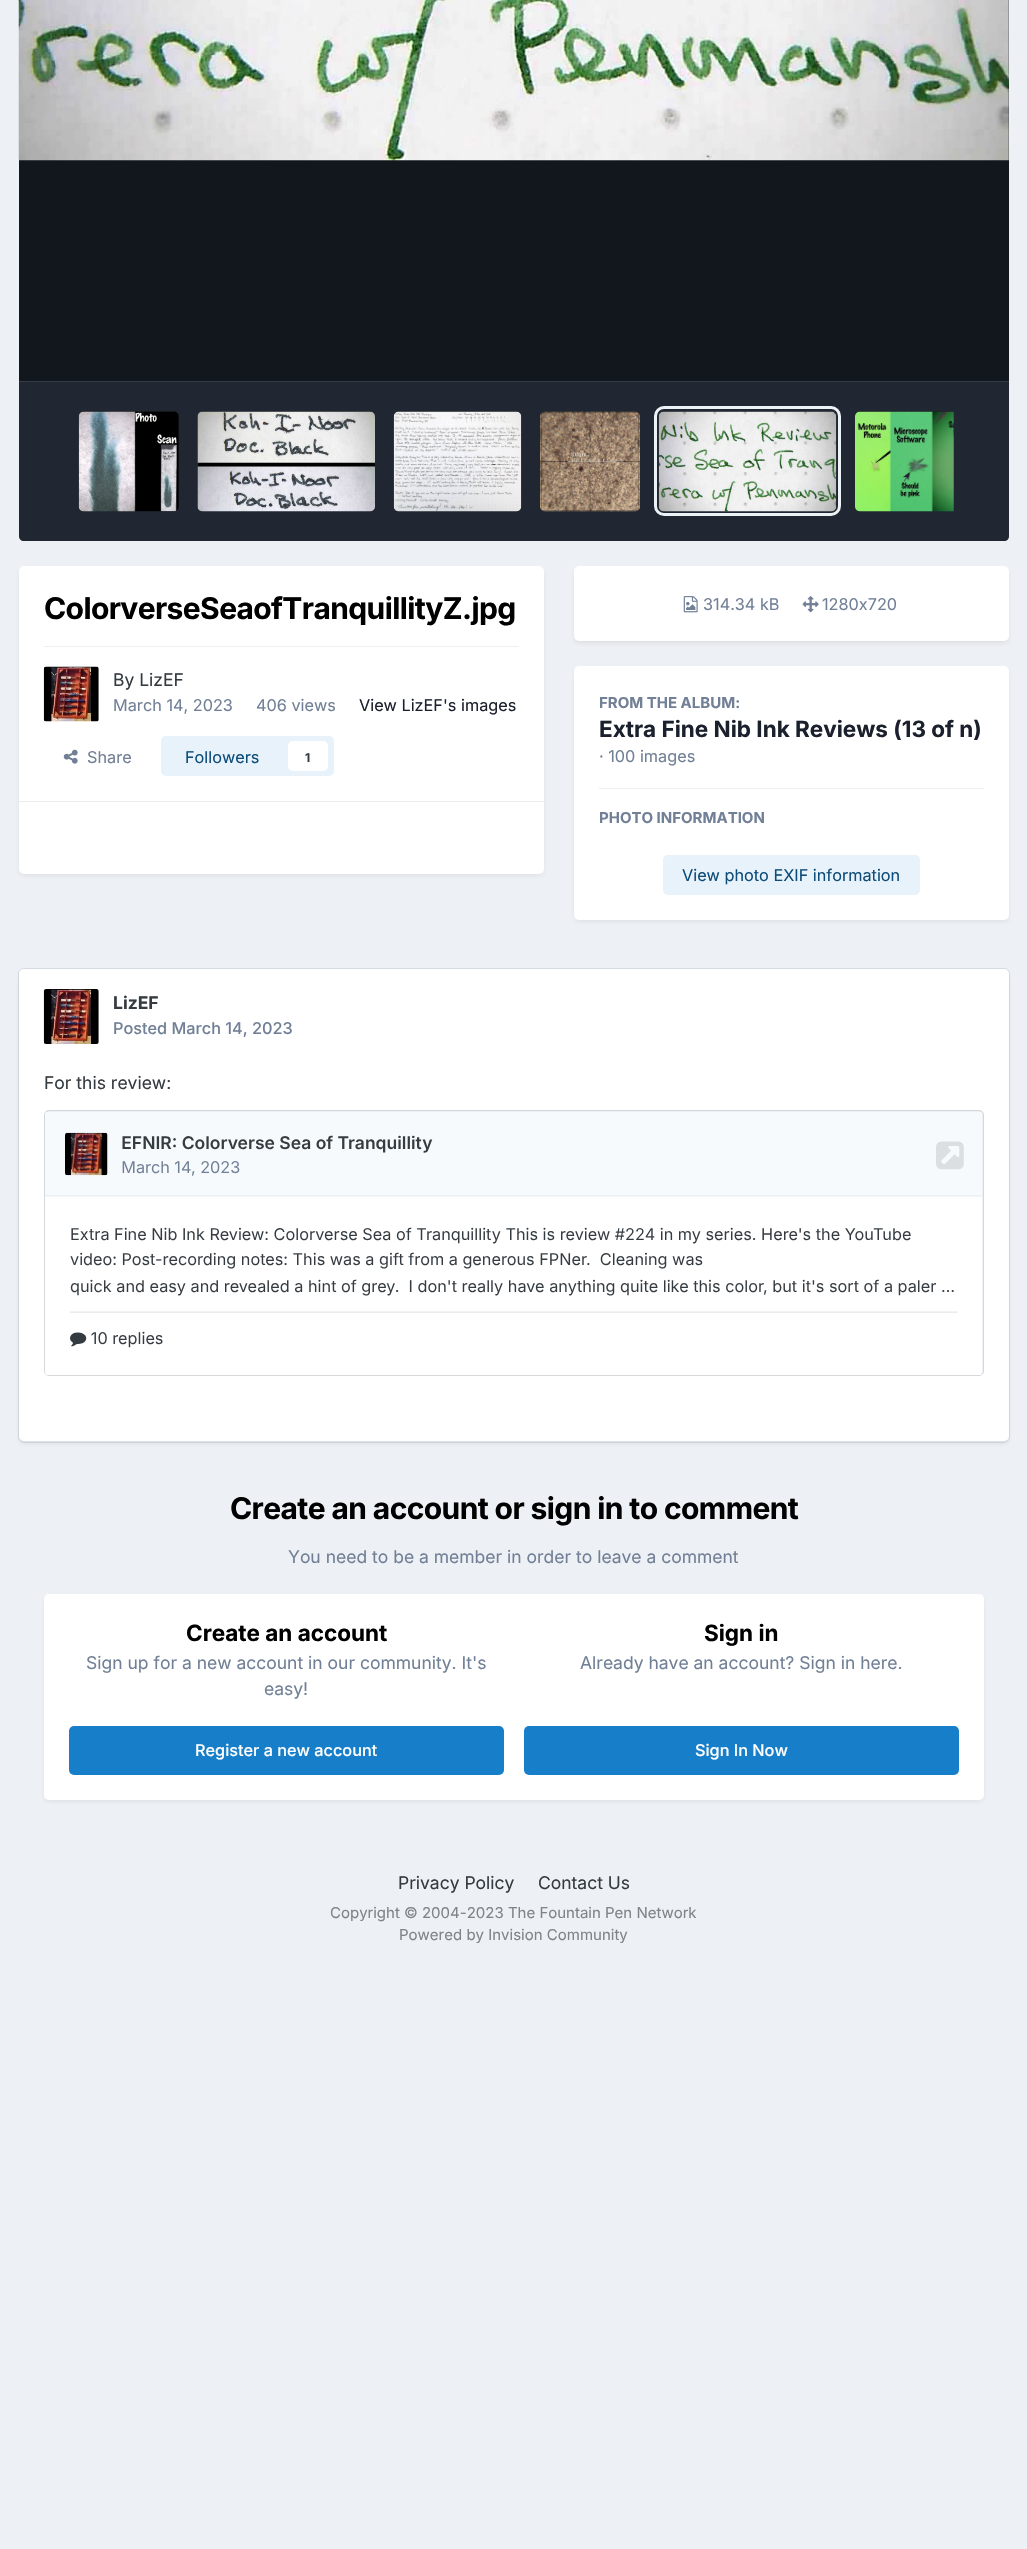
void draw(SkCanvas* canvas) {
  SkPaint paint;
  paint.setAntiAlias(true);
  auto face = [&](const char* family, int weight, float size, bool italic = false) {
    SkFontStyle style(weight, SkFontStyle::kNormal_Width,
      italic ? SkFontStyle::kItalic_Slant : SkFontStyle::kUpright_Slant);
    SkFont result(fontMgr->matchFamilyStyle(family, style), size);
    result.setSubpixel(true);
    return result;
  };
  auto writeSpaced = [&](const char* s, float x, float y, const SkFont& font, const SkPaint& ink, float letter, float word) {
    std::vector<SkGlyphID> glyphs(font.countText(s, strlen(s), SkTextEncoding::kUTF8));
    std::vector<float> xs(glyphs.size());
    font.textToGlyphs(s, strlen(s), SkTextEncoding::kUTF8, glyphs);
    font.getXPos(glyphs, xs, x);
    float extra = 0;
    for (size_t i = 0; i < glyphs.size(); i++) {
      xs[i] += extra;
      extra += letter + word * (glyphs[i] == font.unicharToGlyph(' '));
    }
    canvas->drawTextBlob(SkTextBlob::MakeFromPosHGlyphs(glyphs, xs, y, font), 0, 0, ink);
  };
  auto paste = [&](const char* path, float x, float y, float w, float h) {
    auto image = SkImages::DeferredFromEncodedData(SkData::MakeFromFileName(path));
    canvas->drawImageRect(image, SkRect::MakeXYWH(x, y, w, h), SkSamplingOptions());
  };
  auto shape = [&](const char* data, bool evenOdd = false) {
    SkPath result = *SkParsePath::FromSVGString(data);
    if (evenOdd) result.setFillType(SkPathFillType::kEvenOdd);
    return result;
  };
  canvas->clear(0xffedf0f4);
  paint.setColor(0xff12161d);
  canvas->drawRect(SkRect::MakeXYWH(19, 0, 990, 381), paint);
  paste("img/1.png", 18, 0, 991, 161);
  paint.setColor(0xff2d3748);
  canvas->drawPath(shape("M19 381H1009V536C1009 539 1007 541 1004 541H24C21 541 19 539 19 536Z"), paint);
  paint.setColor(0x4d000000);
  canvas->drawPath(shape("M19 381H1009V536C1009 539 1007 541 1004 541H24C21 541 19 539 19 536Z"), paint);
  paint.setColor(0xff363c47);
  canvas->drawRect(SkRect::MakeXYWH(19, 381, 990, 1), paint);
  paint.setColor(0xff141414);
  canvas->drawRoundRect(SkRect::MakeXYWH(79, 411, 100, 100), 5, 5, paint);
  paint.setColor(0x4d2d3748);
  canvas->drawRoundRect(SkRect::MakeXYWH(79, 411, 100, 100), 5, 5, paint);
  paste("img/2.png", 78, 411, 101, 101);
  paint.setColor(0xff141414);
  canvas->drawRoundRect(SkRect::MakeXYWH(198, 411, 177, 100), 5, 5, paint);
  paint.setColor(0x4d2d3748);
  canvas->drawRoundRect(SkRect::MakeXYWH(198, 411, 177, 100), 5, 5, paint);
  paste("img/3.png", 197, 411, 178, 101);
  paint.setColor(0xff141414);
  canvas->drawRoundRect(SkRect::MakeXYWH(394, 411, 127, 100), 5, 5, paint);
  paint.setColor(0x4d2d3748);
  canvas->drawRoundRect(SkRect::MakeXYWH(394, 411, 127, 100), 5, 5, paint);
  paste("img/4.png", 393, 411, 129, 101);
  paint.setColor(0xff141414);
  canvas->drawRoundRect(SkRect::MakeXYWH(540, 411, 100, 100), 5, 5, paint);
  paint.setColor(0x4d2d3748);
  canvas->drawRoundRect(SkRect::MakeXYWH(540, 411, 100, 100), 5, 5, paint);
  paste("img/5.png", 540, 411, 100, 101);
  paint.setColor(0xff141414);
  canvas->drawRoundRect(SkRect::MakeXYWH(659, 411, 177, 100), 5, 5, paint);
  paint.setColor(0x4d2d3748);
  canvas->drawRoundRect(SkRect::MakeXYWH(659, 411, 177, 100), 5, 5, paint);
  paint.setStroke(true);
  paint.setStrokeWidth(3);
  paint.setColor(0xffedf2f7);
  canvas->drawRoundRect(SkRect::MakeXYWH(655.5f, 407.5f, 184, 107), 8.5f, 8.5f, paint);
  paste("img/6.png", 658, 411, 179, 101);
  paint.setStroke(false);
  paint.setColor(0xff141414);
  canvas->drawPath(shape("M860 411H954V511H860C857 511 855 509 855 506V416C855 413 857 411 860 411Z"), paint);
  paint.setColor(0x4d2d3748);
  canvas->drawPath(shape("M860 411H954V511H860C857 511 855 509 855 506V416C855 413 857 411 860 411Z"), paint);
  paste("img/7.png", 855, 411, 99, 101);
  paint.setColor(0x1a2d3748);
  paint.setMaskFilter(SkMaskFilter::MakeBlur(kNormal_SkBlurStyle, 2.5f));
  canvas->drawRoundRect(SkRect::MakeXYWH(20, 570, 523, 305), 4, 4, paint);
  paint.setMaskFilter(nullptr);
  paint.setColor(0xffffffff);
  canvas->drawRoundRect(SkRect::MakeXYWH(19, 566, 525, 308), 5, 5, paint);
  paint.setColor(0xffefeff0);
  canvas->drawRect(SkRect::MakeXYWH(44, 646, 475, 1), paint);
  paste("img/8.png", 43, 666, 56, 56);
  paste("img/9.png", 63, 749, 15, 15);
  paint.setColor(0xffe8f2fa);
  canvas->drawRoundRect(SkRect::MakeXYWH(161, 736, 173, 40), 5, 5, paint);
  paint.setColor(0xffffffff);
  canvas->drawRoundRect(SkRect::MakeXYWH(288, 741, 40, 30), 5, 5, paint);
  paint.setColor(0xffebecec);
  canvas->drawRect(SkRect::MakeXYWH(19, 801, 525, 1), paint);
  paint.setColor(0x1a2d3748);
  paint.setMaskFilter(SkMaskFilter::MakeBlur(kNormal_SkBlurStyle, 2.5f));
  canvas->drawRoundRect(SkRect::MakeXYWH(575, 570, 433, 73), 4, 4, paint);
  paint.setMaskFilter(nullptr);
  paint.setColor(0xffffffff);
  canvas->drawRoundRect(SkRect::MakeXYWH(574, 566, 435, 75), 5, 5, paint);
  paste("img/10.png", 683, 596, 15, 17);
  paste("img/11.png", 802, 596, 17, 17);
  paint.setColor(0x1a2d3748);
  paint.setMaskFilter(SkMaskFilter::MakeBlur(kNormal_SkBlurStyle, 2.5f));
  canvas->drawRoundRect(SkRect::MakeXYWH(575, 670, 433, 251), 4, 4, paint);
  paint.setMaskFilter(nullptr);
  paint.setColor(0xffffffff);
  canvas->drawRoundRect(SkRect::MakeXYWH(574, 666, 435, 254), 5, 5, paint);
  paint.setColor(0xffefeff0);
  canvas->drawRect(SkRect::MakeXYWH(599, 788, 385, 1), paint);
  paint.setColor(0xffe8f2fa);
  canvas->drawRoundRect(SkRect::MakeXYWH(663, 855, 257, 40), 5, 5, paint);
  paint.setColor(0x1a2d3748);
  paint.setMaskFilter(SkMaskFilter::MakeBlur(kNormal_SkBlurStyle, 2.5f));
  canvas->drawRoundRect(SkRect::MakeXYWH(20, 973, 988, 470), 4, 4, paint);
  paint.setMaskFilter(nullptr);
  paint.setStroke(true);
  paint.setStrokeWidth(1);
  paint.setColor(0x33718096);
  canvas->drawRoundRect(SkRect::MakeXYWH(18.5f, 968.5f, 991, 474), 5.5f, 5.5f, paint);
  paint.setStroke(false);
  paint.setColor(0xffffffff);
  canvas->drawRoundRect(SkRect::MakeXYWH(19, 969, 990, 472), 5, 5, paint);
  paste("img/12.png", 43, 989, 56, 55);
  paint.setColor(0xffedf0f4);
  canvas->drawRoundRect(SkRect::MakeXYWH(44, 1110, 940, 266), 5, 5, paint);
  paint.setStroke(true);
  paint.setColor(0x1a000000);
  canvas->drawRoundRect(SkRect::MakeXYWH(44.5f, 1110.5f, 939, 265), 4.5f, 4.5f, paint);
  paste("img/13.png", 45, 1112, 937, 263);
  paint.setStroke(false);
  paint.setColor(0x1a2d3748);
  paint.setMaskFilter(SkMaskFilter::MakeBlur(kNormal_SkBlurStyle, 2.5f));
  canvas->drawRoundRect(SkRect::MakeXYWH(45, 1598, 938, 203), 4, 4, paint);
  paint.setMaskFilter(nullptr);
  paint.setColor(0xffffffff);
  canvas->drawRoundRect(SkRect::MakeXYWH(44, 1594, 940, 206), 5, 5, paint);
  paint.setColor(0xff177ec9);
  canvas->drawRoundRect(SkRect::MakeXYWH(69, 1726, 435, 49), 5, 5, paint);
  canvas->drawRoundRect(SkRect::MakeXYWH(524, 1726, 435, 49), 5, 5, paint);
  auto f0 = face("Inter", 700, 30);
  paint.setColor(0xff000000);
  writeSpaced("ColorverseSeaofTranquillityZ.jpg", 44, 619, f0, paint, -0.6f, 0);
  auto f1 = face("Inter", 400, 17.5f);
  paint.setColor(0xff353c41);
  canvas->drawString("By LizEF", 113, 686, f1, paint);
  auto f2 = face("Inter", 400, 16.25f);
  paint.setColor(0xff718096);
  canvas->drawString("March 14, 2023", 113, 711, f2, paint);
  canvas->drawString("406 views", 256, 711, f2, paint);
  paint.setColor(0xff1a202c);
  canvas->drawString("View LizEF's images", 359, 711, f2, paint);
  paint.setColor(0xff718096);
  canvas->drawString("Share", 87, 763, f2, paint);
  paint.setColor(0xff0e4c79);
  canvas->drawString("Followers", 185, 763, f2, paint);
  auto f3 = face("Inter", 700, 12);
  paint.setColor(0xff353c41);
  canvas->drawString("1", 305, 762, f3, paint);
  paint.setColor(0xff718096);
  canvas->drawString("314.34 kB", 703, 610, f2, paint);
  canvas->drawString("1280x720", 822, 610, f2, paint);
  auto f4 = face("Inter", 700, 15);
  canvas->drawString("FROM THE ALBUM:", 599, 708, f4, paint);
  auto f5 = face("Inter", 700, 22.5f);
  paint.setColor(0xff1a202c);
  canvas->drawString("Extra Fine Nib Ink Reviews (13 of n)", 599, 737, f5, paint);
  paint.setColor(0xff718096);
  canvas->drawString("· 100 images", 599, 762, f2, paint);
  canvas->drawString("PHOTO INFORMATION", 599, 823, f4, paint);
  paint.setColor(0xff0e4c79);
  canvas->drawString("View photo EXIF information", 682, 881, f2, paint);
  auto f6 = face("Inter", 700, 17.5f);
  paint.setColor(0xff353c41);
  canvas->drawString("LizEF", 113, 1009, f6, paint);
  auto f7 = face("Inter", 500, 16.25f);
  paint.setColor(0xff718096);
  canvas->drawString("Posted March 14, 2023", 113, 1034, f7, paint);
  paint.setColor(0xff353c41);
  canvas->drawString("For this review:", 44, 1089, f1, paint);
  paint.setColor(0xff000000);
  writeSpaced("Create an account or sign in to comment", 230, 1519, f0, paint, -0.6f, 0);
  paint.setColor(0xff718096);
  canvas->drawString("You need to be a member in order to leave a comment", 288, 1563, f1, paint);
  paint.setColor(0xff000000);
  canvas->drawString("Create an account", 186, 1641, f5, paint);
  paint.setColor(0xff718096);
  canvas->drawString("Sign up for a new account in our community. It's", 86, 1669, f1, paint);
  canvas->drawString("easy!", 264, 1695, f1, paint);
  paint.setColor(0xffffffff);
  canvas->drawString("Register a new account", 195, 1756, f7, paint);
  paint.setColor(0xff000000);
  canvas->drawString("Sign in", 704, 1641, f5, paint);
  paint.setColor(0xff718096);
  canvas->drawString("Already have an account? Sign in here.", 580, 1669, f1, paint);
  paint.setColor(0xffffffff);
  canvas->drawString("Sign In Now", 695, 1756, f7, paint);
  paint.setColor(0xff353c41);
  canvas->drawString("Privacy Policy", 398, 1889, f1, paint);
  canvas->drawString("Contact Us", 538, 1889, f1, paint);
  auto f8 = face("Inter", 400, 15);
  paint.setColor(0xff7f8489);
  canvas->drawString("Copyright © 2004-2023 The Fountain Pen Network", 330, 1918, f8, paint);
  canvas->drawString("Powered by Invision Community", 399, 1940, f8, paint);
}
